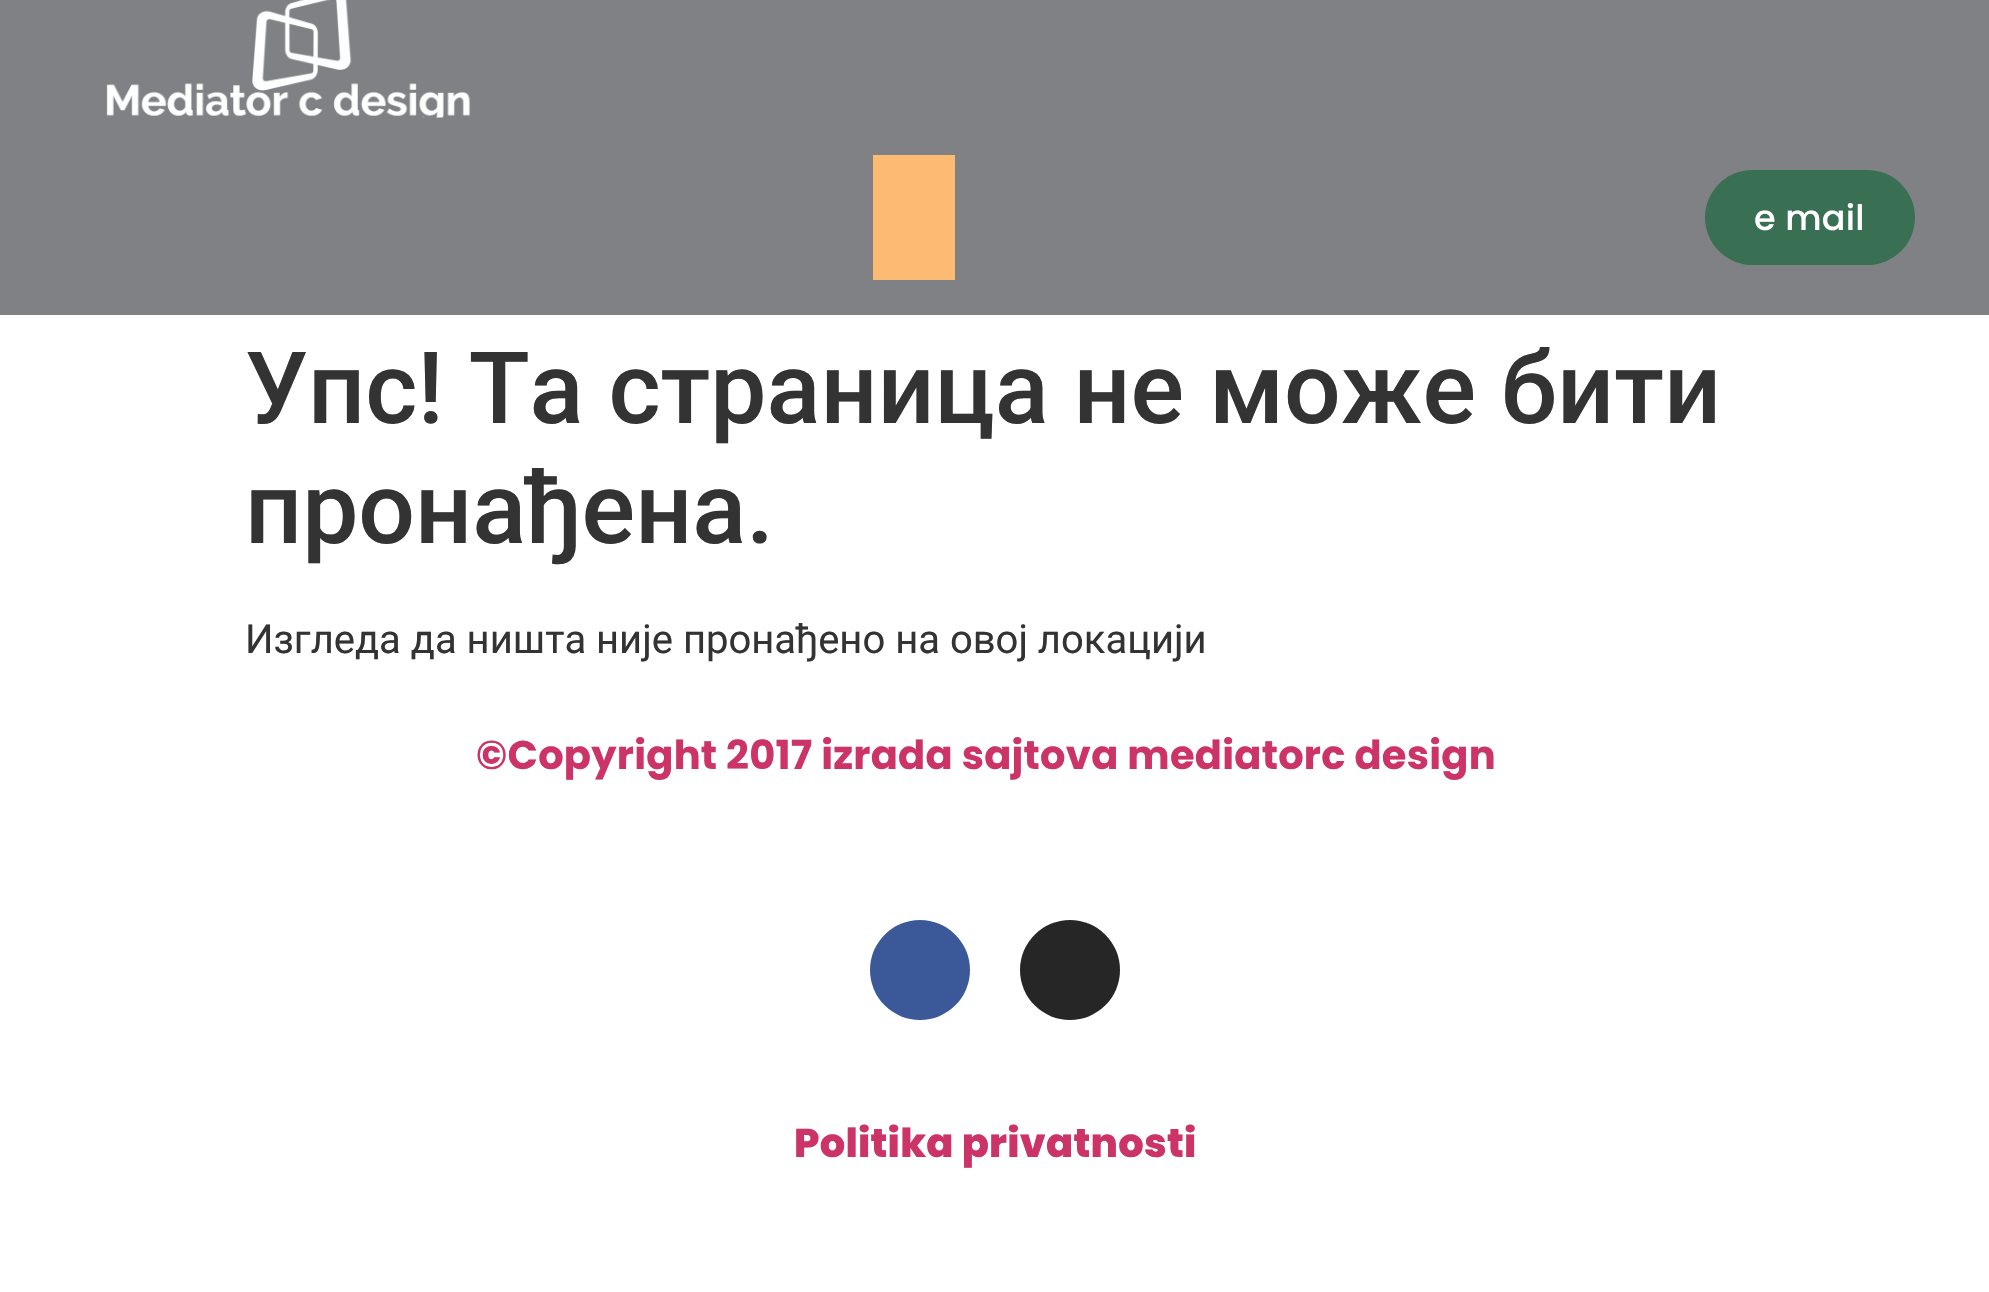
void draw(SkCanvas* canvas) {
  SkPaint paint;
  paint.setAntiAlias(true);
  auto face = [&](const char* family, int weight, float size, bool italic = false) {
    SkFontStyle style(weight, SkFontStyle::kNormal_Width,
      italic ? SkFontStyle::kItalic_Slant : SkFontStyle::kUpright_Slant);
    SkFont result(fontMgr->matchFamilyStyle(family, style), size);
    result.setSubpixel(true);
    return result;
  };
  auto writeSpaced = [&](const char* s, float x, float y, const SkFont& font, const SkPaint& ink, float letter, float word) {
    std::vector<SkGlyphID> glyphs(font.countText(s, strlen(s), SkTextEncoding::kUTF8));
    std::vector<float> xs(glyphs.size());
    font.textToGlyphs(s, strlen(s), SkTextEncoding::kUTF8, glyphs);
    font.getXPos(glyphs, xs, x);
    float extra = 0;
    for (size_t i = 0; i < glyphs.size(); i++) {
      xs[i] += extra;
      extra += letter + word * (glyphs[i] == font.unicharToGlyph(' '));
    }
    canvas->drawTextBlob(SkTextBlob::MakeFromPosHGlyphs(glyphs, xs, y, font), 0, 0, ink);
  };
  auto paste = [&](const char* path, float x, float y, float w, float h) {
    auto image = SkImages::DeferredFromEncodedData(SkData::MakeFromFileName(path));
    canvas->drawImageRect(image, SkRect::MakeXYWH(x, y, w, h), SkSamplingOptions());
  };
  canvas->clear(0xffffffff);
  paint.setColor(0xff808184);
  canvas->drawRect(SkRect::MakeXYWH(0, 0, 1989, 315), paint);
  paste("img/1.png", 106, 0, 365, 118);
  paint.setColor(0xfffdba73);
  canvas->drawRect(SkRect::MakeXYWH(873, 155, 82, 125), paint);
  paint.setColor(0xff396f53);
  canvas->drawRoundRect(SkRect::MakeXYWH(1705, 170, 210, 95), 47.5f, 47.5f, paint);
  paint.setColor(0xff3b5998);
  canvas->drawCircle(920, 970, 50, paint);
  paint.setColor(0xff262626);
  canvas->drawCircle(1070, 970, 50, paint);
  auto f0 = face("Poppins", 500, 35);
  paint.setColor(0xffffffff);
  writeSpaced("e mail", 1754, 230, f0, paint, 0.25f, 0);
  auto f1 = face("Roboto", 500, 100);
  paint.setColor(0xff333333);
  canvas->drawString("Упс! Та страница не може бити", 245, 423, f1, paint);
  canvas->drawString("пронађена.", 245, 543, f1, paint);
  auto f2 = face("Roboto", 400, 40);
  canvas->drawString("Изгледа да ништа није пронађено на овој локацији", 245, 653, f2, paint);
  auto f3 = face("Poppins", 700, 40);
  paint.setColor(0xffcc3366);
  writeSpaced("©Copyright 2017 izrada sajtova mediatorc design", 476, 769, f3, paint, 0.25f, 0);
  auto f4 = face("Poppins", 800, 40);
  writeSpaced("Politika privatnosti", 794, 1157, f4, paint, 0.25f, 0);
}
